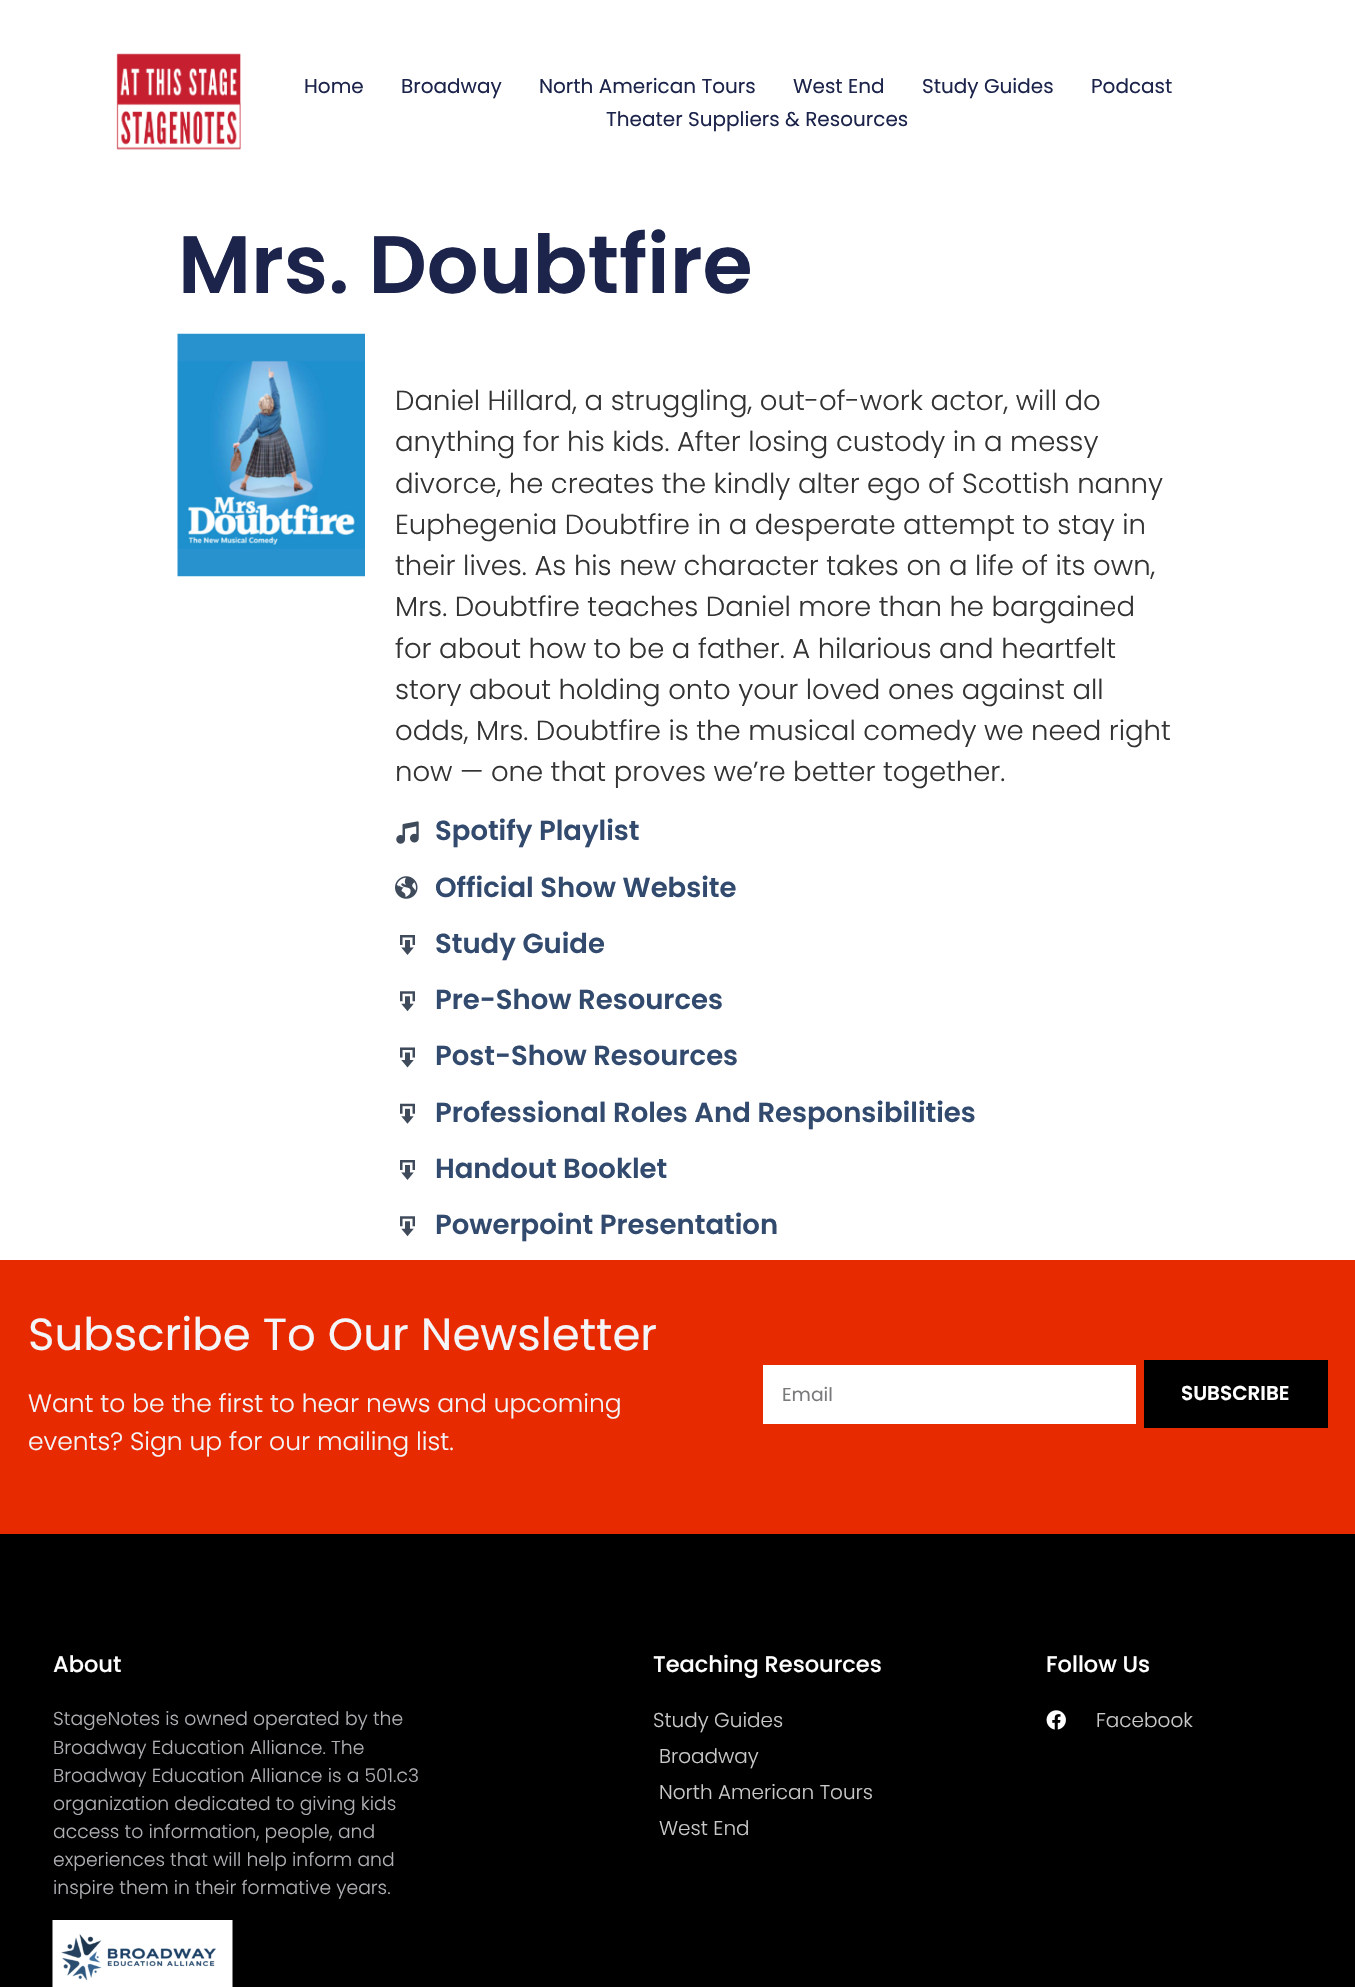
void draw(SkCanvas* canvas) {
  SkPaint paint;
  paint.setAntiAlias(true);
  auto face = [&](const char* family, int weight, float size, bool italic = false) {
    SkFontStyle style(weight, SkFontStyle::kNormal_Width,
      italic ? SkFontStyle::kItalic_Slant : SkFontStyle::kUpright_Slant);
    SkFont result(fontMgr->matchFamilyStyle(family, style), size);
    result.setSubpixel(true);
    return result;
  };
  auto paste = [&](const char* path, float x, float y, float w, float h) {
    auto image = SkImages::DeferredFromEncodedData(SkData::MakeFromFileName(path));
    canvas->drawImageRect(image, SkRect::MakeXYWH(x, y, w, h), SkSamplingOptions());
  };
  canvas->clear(0xffffffff);
  paste("img/1.png", 116, 53, 125, 97);
  paste("img/2.png", 177, 333, 188, 244);
  paste("img/3.png", 396, 821, 23, 23);
  paste("img/4.png", 395, 876, 23, 23);
  paste("img/5.png", 400, 935, 15, 20);
  paste("img/6.png", 400, 991, 15, 21);
  paste("img/7.png", 400, 1047, 15, 21);
  paste("img/8.png", 400, 1103, 15, 21);
  paste("img/5.png", 400, 1160, 15, 20);
  paste("img/6.png", 400, 1216, 15, 21);
  {
    const struct { float x, y, w, h; SkColor color; } items[] = {
      {0, 1260, 1355, 274, 0xffe82a00},
      {763, 1365, 373, 59, 0xffffffff},
      {1144, 1360, 184, 68, 0xff000000},
      {0, 1534, 1355, 453, 0xff000000},
    };
    for (auto [x, y, w, h, color] : items) {
      paint.setColor(color);
      canvas->drawRect(SkRect::MakeXYWH(x, y, w, h), paint);
    }
  }
  paste("img/9.png", 52, 1920, 181, 67);
  paste("img/10.png", 1046, 1710, 20, 20);
  auto f0 = face("Poppins", 400, 20);
  paint.setColor(0xff1c244b);
  {
    const struct { const char* s; float x, y; } items[] = {
      {"Home", 304, 93},
      {"Broadway", 401, 93},
      {"North American Tours", 539, 93},
      {"West End", 793, 93},
      {"Study Guides", 922, 93},
      {"Podcast", 1091, 93},
      {"Theater Suppliers & Resources", 606, 126},
    };
    for (auto [s, x, y] : items) {
      canvas->drawString(s, x, y, f0, paint);
    }
  }
  auto f1 = face("Poppins", 600, 81.25f);
  canvas->drawString("Mrs. Doubtfire", 178, 293, f1, paint);
  auto f2 = face("Poppins", 300, 27.5f);
  paint.setColor(0xff333333);
  {
    const struct { const char* s; float x, y; } items[] = {
      {"Daniel Hillard, a struggling, out-of-work actor, will do", 395, 410},
      {"anything for his kids. After losing custody in a messy", 395, 451},
      {"divorce, he creates the kindly alter ego of Scottish nanny", 395, 493},
      {"Euphegenia Doubtfire in a desperate attempt to stay in", 395, 534},
      {"their lives. As his new character takes on a life of its own,", 395, 575},
      {"Mrs. Doubtfire teaches Daniel more than he bargained", 395, 616},
      {"for about how to be a father. A hilarious and heartfelt", 395, 658},
      {"story about holding onto your loved ones against all", 395, 699},
      {"odds, Mrs. Doubtfire is the musical comedy we need right", 395, 740},
      {"now — one that proves we’re better together.", 395, 781},
    };
    for (auto [s, x, y] : items) {
      canvas->drawString(s, x, y, f2, paint);
    }
  }
  auto f3 = face("Poppins", 600, 27.5f);
  paint.setColor(0xff324a6d);
  {
    const struct { const char* s; float x, y; } items[] = {
      {"Spotify Playlist", 435, 840},
      {"Official Show Website", 435, 897},
      {"Study Guide", 435, 953},
      {"Pre-Show Resources", 435, 1009},
      {"Post-Show Resources", 435, 1065},
      {"Professional Roles And Responsibilities", 435, 1122},
      {"Handout Booklet", 435, 1178},
      {"Powerpoint Presentation", 435, 1234},
    };
    for (auto [s, x, y] : items) {
      canvas->drawString(s, x, y, f3, paint);
    }
  }
  auto f4 = face("Poppins", 400, 45);
  paint.setColor(0xfff3f5f8);
  canvas->drawString("Subscribe To Our Newsletter", 28, 1350, f4, paint);
  auto f5 = face("Poppins", 300, 25);
  canvas->drawString("Want to be the first to hear news and upcoming", 28, 1412, f5, paint);
  canvas->drawString("events? Sign up for our mailing list.", 28, 1450, f5, paint);
  auto f6 = face("Poppins", 400, 18.75f);
  paint.setColor(0xff797a7c);
  canvas->drawString("Email", 782, 1401, f6, paint);
  auto f7 = face("Poppins", 600, 20);
  paint.setColor(0xffffffff);
  canvas->drawString("SUBSCRIBE", 1181, 1400, f7, paint);
  auto f8 = face("Poppins", 500, 22.5f);
  canvas->drawString("About", 53, 1672, f8, paint);
  auto f9 = face("Poppins", 300, 18.75f);
  paint.setColor(0xffaeafb3);
  {
    const struct { const char* s; float x, y; } items[] = {
      {"StageNotes is owned operated by the", 53, 1725},
      {"Broadway Education Alliance. The", 53, 1754},
      {"Broadway Education Alliance is a 501.c3", 53, 1782},
      {"organization dedicated to giving kids", 53, 1810},
      {"access to information, people, and", 53, 1838},
      {"experiences that will help inform and", 53, 1866},
      {"inspire them in their formative years.", 53, 1894},
    };
    for (auto [s, x, y] : items) {
      canvas->drawString(s, x, y, f9, paint);
    }
  }
  paint.setColor(0xffffffff);
  canvas->drawString("Teaching Resources", 653, 1672, f8, paint);
  auto f10 = face("Poppins", 300, 20);
  paint.setColor(0xffc9c9c9);
  {
    const struct { const char* s; float x, y; } items[] = {
      {"Study Guides", 653, 1727},
      {"Broadway", 659, 1763},
      {"North American Tours", 659, 1799},
      {"West End", 659, 1835},
    };
    for (auto [s, x, y] : items) {
      canvas->drawString(s, x, y, f10, paint);
    }
  }
  paint.setColor(0xffffffff);
  canvas->drawString("Follow Us", 1046, 1672, f8, paint);
  paint.setColor(0xffc9c9c9);
  canvas->drawString("Facebook", 1096, 1727, f10, paint);
}
